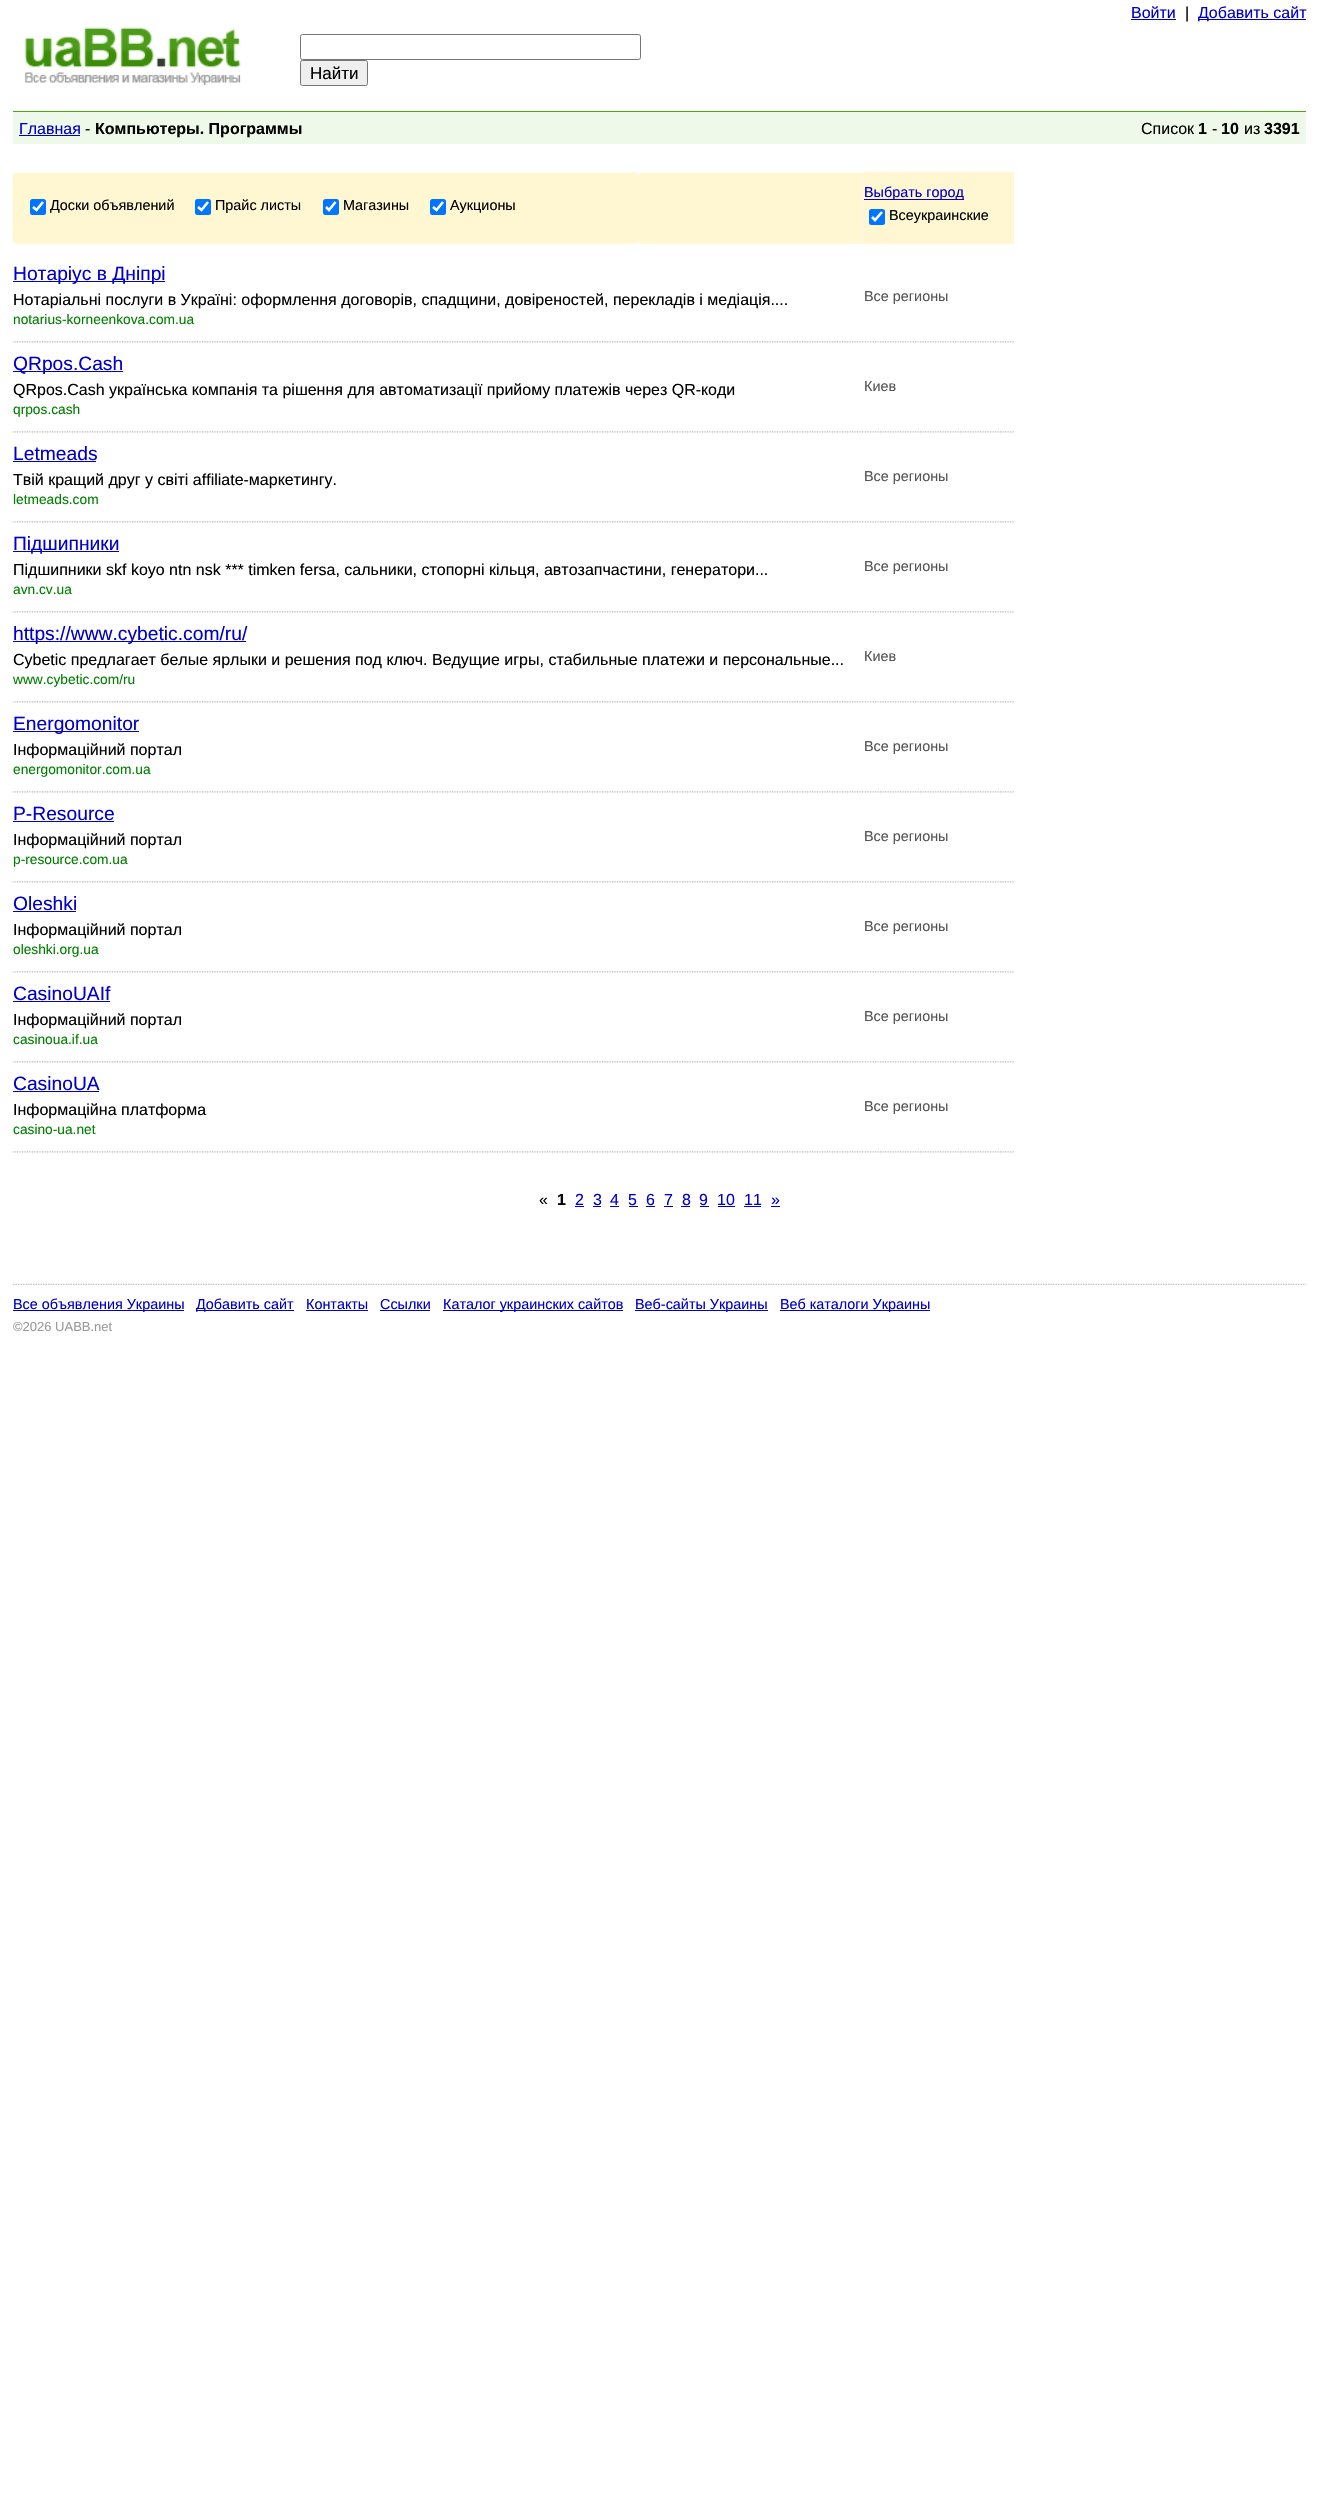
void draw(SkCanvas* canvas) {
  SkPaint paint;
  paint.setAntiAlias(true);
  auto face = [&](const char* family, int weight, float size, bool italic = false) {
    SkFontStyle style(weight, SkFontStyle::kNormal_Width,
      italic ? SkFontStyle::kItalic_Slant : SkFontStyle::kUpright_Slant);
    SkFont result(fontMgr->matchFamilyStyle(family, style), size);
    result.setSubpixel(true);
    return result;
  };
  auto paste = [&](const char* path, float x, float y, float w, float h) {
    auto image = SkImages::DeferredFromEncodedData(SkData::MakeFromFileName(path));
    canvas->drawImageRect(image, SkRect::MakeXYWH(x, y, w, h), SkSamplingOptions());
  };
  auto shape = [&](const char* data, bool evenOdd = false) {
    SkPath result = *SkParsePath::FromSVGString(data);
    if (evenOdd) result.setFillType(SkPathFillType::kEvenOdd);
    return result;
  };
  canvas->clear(0xffffffff);
  paint.setColor(0xff0000cc);
  canvas->drawRect(SkRect::MakeXYWH(1131, 19, 45, 1), paint);
  canvas->drawRect(SkRect::MakeXYWH(1198, 19, 108, 1), paint);
  paste("img/1.png", 24, 27, 217, 59);
  paint.setStroke(true);
  paint.setStrokeWidth(1);
  paint.setColor(0xff767676);
  canvas->drawRoundRect(SkRect::MakeXYWH(300.5f, 34.5f, 340, 25), 2, 2, paint);
  paint.setStroke(false);
  paint.setColor(0xffefefef);
  canvas->drawRoundRect(SkRect::MakeXYWH(300.5f, 60.5f, 67, 25), 2, 2, paint);
  paint.setStroke(true);
  paint.setColor(0xff767676);
  canvas->drawRoundRect(SkRect::MakeXYWH(300.5f, 60.5f, 67, 25), 2, 2, paint);
  paint.setStroke(false);
  {
    const struct { float x, y, w, h; SkColor color; } items[] = {
      {13, 112, 1293, 32, 0xffeff9e9},
      {13, 111, 1293, 1, 0xff4baa10},
      {19, 135, 61, 1, 0xff0000cc},
    };
    for (auto [x, y, w, h, color] : items) {
      paint.setColor(color);
      canvas->drawRect(SkRect::MakeXYWH(x, y, w, h), paint);
    }
  }
  paste("img/2.png", 12, 172, 852, 72);
  paint.setColor(0xff0075ff);
  canvas->drawRoundRect(SkRect::MakeXYWH(30, 199, 16, 16), 2.5f, 2.5f, paint);
  paint.setStroke(true);
  paint.setStrokeWidth(2.6f);
  paint.setColor(0xffffffff);
  canvas->drawPath(shape("M33 207L36.5 210L43 202"), paint);
  paint.setStroke(false);
  paint.setColor(0xff0075ff);
  canvas->drawRoundRect(SkRect::MakeXYWH(195, 199, 16, 16), 2.5f, 2.5f, paint);
  paint.setStroke(true);
  paint.setColor(0xffffffff);
  canvas->drawPath(shape("M198 207L201.5 210L208 202"), paint);
  paint.setStroke(false);
  paint.setColor(0xff0075ff);
  canvas->drawRoundRect(SkRect::MakeXYWH(323, 199, 16, 16), 2.5f, 2.5f, paint);
  paint.setStroke(true);
  paint.setColor(0xffffffff);
  canvas->drawPath(shape("M326 207L329 210L335.5 202"), paint);
  paint.setStroke(false);
  paint.setColor(0xff0075ff);
  canvas->drawRoundRect(SkRect::MakeXYWH(430, 199, 16, 16), 2.5f, 2.5f, paint);
  paint.setStroke(true);
  paint.setColor(0xffffffff);
  canvas->drawPath(shape("M433 207L436.5 210L443 202"), paint);
  paint.setStroke(false);
  paint.setColor(0xfffff6d2);
  canvas->drawRect(SkRect::MakeXYWH(864, 172, 150, 72), paint);
  paint.setColor(0xff0000cc);
  canvas->drawRect(SkRect::MakeXYWH(864, 199, 100, 1), paint);
  paint.setColor(0xff0075ff);
  canvas->drawRoundRect(SkRect::MakeXYWH(869, 209, 16, 16), 2.5f, 2.5f, paint);
  paint.setStroke(true);
  paint.setColor(0xffffffff);
  canvas->drawPath(shape("M872 217L875 220L882 212"), paint);
  paste("img/3.png", 12, 341, 852, 2);
  paint.setStroke(false);
  paint.setColor(0xff0000cc);
  canvas->drawRect(SkRect::MakeXYWH(13, 281, 152, 1), paint);
  paste("img/4.png", 863, 341, 151, 2);
  paste("img/3.png", 12, 431, 852, 2);
  canvas->drawRect(SkRect::MakeXYWH(13, 371, 110, 1), paint);
  paste("img/4.png", 863, 431, 151, 2);
  paste("img/3.png", 12, 521, 852, 2);
  canvas->drawRect(SkRect::MakeXYWH(13, 461, 83, 1), paint);
  paste("img/4.png", 863, 521, 151, 2);
  paste("img/3.png", 12, 611, 852, 2);
  canvas->drawRect(SkRect::MakeXYWH(13, 551, 106, 1), paint);
  paste("img/4.png", 863, 611, 151, 2);
  paste("img/3.png", 12, 701, 852, 2);
  canvas->drawRect(SkRect::MakeXYWH(13, 641, 233, 1), paint);
  paste("img/4.png", 863, 701, 151, 2);
  paste("img/3.png", 12, 791, 852, 2);
  canvas->drawRect(SkRect::MakeXYWH(13, 731, 126, 1), paint);
  paste("img/4.png", 863, 791, 151, 2);
  paste("img/3.png", 12, 881, 852, 2);
  canvas->drawRect(SkRect::MakeXYWH(13, 821, 101, 1), paint);
  paste("img/4.png", 863, 881, 151, 2);
  paste("img/3.png", 12, 971, 852, 2);
  canvas->drawRect(SkRect::MakeXYWH(13, 911, 63, 1), paint);
  paste("img/4.png", 863, 971, 151, 2);
  paste("img/3.png", 12, 1061, 852, 2);
  canvas->drawRect(SkRect::MakeXYWH(13, 1001, 97, 1), paint);
  paste("img/4.png", 863, 1061, 151, 2);
  paste("img/3.png", 12, 1151, 852, 2);
  canvas->drawRect(SkRect::MakeXYWH(13, 1091, 86, 1), paint);
  paste("img/4.png", 863, 1151, 151, 2);
  {
    const struct { float x, y, w, h; SkColor color; } items[] = {
      {575, 1206, 9, 1, 0xff0000cc},
      {593, 1206, 8, 1, 0xff0000cc},
      {610, 1206, 9, 1, 0xff0000cc},
      {629, 1206, 9, 1, 0xff0000cc},
      {646, 1206, 9, 1, 0xff0000cc},
      {664, 1206, 9, 1, 0xff0000cc},
      {681, 1206, 9, 1, 0xff0000cc},
      {700, 1206, 9, 1, 0xff0000cc},
      {718, 1206, 17, 1, 0xff0000cc},
      {744, 1206, 17, 1, 0xff0000cc},
      {771, 1206, 9, 1, 0xff0000cc},
    };
    for (auto [x, y, w, h, color] : items) {
      paint.setColor(color);
      canvas->drawRect(SkRect::MakeXYWH(x, y, w, h), paint);
    }
  }
  paste("img/5.png", 13, 1283, 1294, 2);
  {
    const struct { float x, y, w, h; SkColor color; } items[] = {
      {13, 1310, 171, 1, 0xff0000cc},
      {196, 1310, 98, 1, 0xff0000cc},
      {306, 1310, 62, 1, 0xff0000cc},
      {380, 1310, 50, 1, 0xff0000cc},
      {443, 1310, 180, 1, 0xff0000cc},
      {635, 1310, 133, 1, 0xff0000cc},
      {780, 1310, 150, 1, 0xff0000cc},
    };
    for (auto [x, y, w, h, color] : items) {
      paint.setColor(color);
      canvas->drawRect(SkRect::MakeXYWH(x, y, w, h), paint);
    }
  }
  auto f0 = face("Liberation Sans", 400, 16);
  canvas->drawString("Войти", 1131, 18, f0, paint);
  paint.setColor(0xff000000);
  canvas->drawString("|", 1185, 18, f0, paint);
  paint.setColor(0xff0000cc);
  canvas->drawString("Добавить сайт", 1198, 18, f0, paint);
  auto f1 = face("Liberation Sans", 400, 17);
  paint.setColor(0xff000000);
  canvas->drawString("Найти", 310, 79, f1, paint);
  paint.setColor(0xff0000cc);
  canvas->drawString("Главная", 19, 134, f0, paint);
  paint.setColor(0xff000000);
  canvas->drawString("-", 85, 134, f0, paint);
  auto f2 = face("Liberation Sans", 700, 16);
  canvas->drawString("Компьютеры. Программы", 95, 134, f2, paint);
  canvas->drawString("Список", 1141, 134, f0, paint);
  canvas->drawString("1", 1198, 134, f2, paint);
  canvas->drawString("-", 1212, 134, f0, paint);
  canvas->drawString("10", 1221, 134, f2, paint);
  canvas->drawString("из", 1244, 134, f0, paint);
  canvas->drawString("3391", 1264, 134, f2, paint);
  auto f3 = face("Liberation Sans", 400, 14.4f);
  {
    const struct { const char* s; float x, y; } items[] = {
      {"Доски объявлений", 50, 210},
      {"Прайс листы", 215, 210},
      {"Магазины", 343, 210},
      {"Аукционы", 450, 210},
    };
    for (auto [s, x, y] : items) {
      canvas->drawString(s, x, y, f3, paint);
    }
  }
  paint.setColor(0xff0000cc);
  canvas->drawString("Выбрать город", 864, 197, f3, paint);
  paint.setColor(0xff000000);
  canvas->drawString("Всеукраинские", 889, 220, f3, paint);
  auto f4 = face("Liberation Sans", 400, 19.25f);
  paint.setColor(0xff0000cc);
  canvas->drawString("Нотаріус в Дніпрі", 13, 280, f4, paint);
  paint.setColor(0xff000000);
  canvas->drawString("Нотаріальні послуги в Україні: оформлення договорів, спадщини, довіреностей, перекладів і медіація....", 13, 305, f0, paint);
  auto f5 = face("Liberation Sans", 400, 13.75f);
  paint.setColor(0xff008000);
  canvas->drawString("notarius-korneenkova.com.ua", 13, 324, f5, paint);
  paint.setColor(0xff555555);
  canvas->drawString("Все регионы", 864, 301, f3, paint);
  paint.setColor(0xff0000cc);
  canvas->drawString("QRpos.Cash", 13, 370, f4, paint);
  paint.setColor(0xff000000);
  canvas->drawString("QRpos.Cash українська компанія та рішення для автоматизації прийому платежів через QR-коди", 13, 395, f0, paint);
  paint.setColor(0xff008000);
  canvas->drawString("qrpos.cash", 13, 414, f5, paint);
  paint.setColor(0xff555555);
  canvas->drawString("Киев", 864, 391, f3, paint);
  paint.setColor(0xff0000cc);
  canvas->drawString("Letmeads", 13, 460, f4, paint);
  paint.setColor(0xff000000);
  canvas->drawString("Твій кращий друг у світі affiliate-маркетингу.", 13, 485, f0, paint);
  paint.setColor(0xff008000);
  canvas->drawString("letmeads.com", 13, 504, f5, paint);
  paint.setColor(0xff555555);
  canvas->drawString("Все регионы", 864, 481, f3, paint);
  paint.setColor(0xff0000cc);
  canvas->drawString("Підшипники", 13, 550, f4, paint);
  paint.setColor(0xff000000);
  canvas->drawString("Підшипники skf koyo ntn nsk *** timken fersa, сальники, стопорні кільця, автозапчастини, генератори...", 13, 575, f0, paint);
  paint.setColor(0xff008000);
  canvas->drawString("avn.cv.ua", 13, 594, f5, paint);
  paint.setColor(0xff555555);
  canvas->drawString("Все регионы", 864, 571, f3, paint);
  paint.setColor(0xff0000cc);
  canvas->drawString("https://www.cybetic.com/ru/", 13, 640, f4, paint);
  paint.setColor(0xff000000);
  canvas->drawString("Cybetic предлагает белые ярлыки и решения под ключ. Ведущие игры, стабильные платежи и персональные...", 13, 665, f0, paint);
  paint.setColor(0xff008000);
  canvas->drawString("www.cybetic.com/ru", 13, 684, f5, paint);
  paint.setColor(0xff555555);
  canvas->drawString("Киев", 864, 661, f3, paint);
  paint.setColor(0xff0000cc);
  canvas->drawString("Energomonitor", 13, 730, f4, paint);
  paint.setColor(0xff000000);
  canvas->drawString("Інформаційний портал", 13, 755, f0, paint);
  paint.setColor(0xff008000);
  canvas->drawString("energomonitor.com.ua", 13, 774, f5, paint);
  paint.setColor(0xff555555);
  canvas->drawString("Все регионы", 864, 751, f3, paint);
  paint.setColor(0xff0000cc);
  canvas->drawString("P-Resource", 13, 820, f4, paint);
  paint.setColor(0xff000000);
  canvas->drawString("Інформаційний портал", 13, 845, f0, paint);
  paint.setColor(0xff008000);
  canvas->drawString("p-resource.com.ua", 13, 864, f5, paint);
  paint.setColor(0xff555555);
  canvas->drawString("Все регионы", 864, 841, f3, paint);
  paint.setColor(0xff0000cc);
  canvas->drawString("Oleshki", 13, 910, f4, paint);
  paint.setColor(0xff000000);
  canvas->drawString("Інформаційний портал", 13, 935, f0, paint);
  paint.setColor(0xff008000);
  canvas->drawString("oleshki.org.ua", 13, 954, f5, paint);
  paint.setColor(0xff555555);
  canvas->drawString("Все регионы", 864, 931, f3, paint);
  paint.setColor(0xff0000cc);
  canvas->drawString("CasinoUAIf", 13, 1000, f4, paint);
  paint.setColor(0xff000000);
  canvas->drawString("Інформаційний портал", 13, 1025, f0, paint);
  paint.setColor(0xff008000);
  canvas->drawString("casinoua.if.ua", 13, 1044, f5, paint);
  paint.setColor(0xff555555);
  canvas->drawString("Все регионы", 864, 1021, f3, paint);
  paint.setColor(0xff0000cc);
  canvas->drawString("CasinoUA", 13, 1090, f4, paint);
  paint.setColor(0xff000000);
  canvas->drawString("Інформаційна платформа", 13, 1115, f0, paint);
  paint.setColor(0xff008000);
  canvas->drawString("casino-ua.net", 13, 1134, f5, paint);
  paint.setColor(0xff555555);
  canvas->drawString("Все регионы", 864, 1111, f3, paint);
  paint.setColor(0xff000000);
  canvas->drawString("«", 539, 1205, f0, paint);
  canvas->drawString("1", 557, 1205, f2, paint);
  paint.setColor(0xff0000cc);
  {
    const struct { const char* s; float x, y; } items[] = {
      {"2", 575, 1205},
      {"3", 593, 1205},
      {"4", 610, 1205},
      {"5", 628, 1205},
      {"6", 646, 1205},
      {"7", 664, 1205},
      {"8", 682, 1205},
      {"9", 699, 1205},
      {"10", 717, 1205},
      {"11", 744, 1205},
      {"»", 771, 1205},
    };
    for (auto [s, x, y] : items) {
      canvas->drawString(s, x, y, f0, paint);
    }
  }
  {
    const struct { const char* s; float x, y; } items[] = {
      {"Все объявления Украины", 13, 1309},
      {"Добавить сайт", 196, 1309},
      {"Контакты", 306, 1309},
      {"Ссылки", 380, 1309},
      {"Каталог украинских сайтов", 443, 1309},
      {"Веб-сайты Украины", 635, 1309},
      {"Веб каталоги Украины", 780, 1309},
    };
    for (auto [s, x, y] : items) {
      canvas->drawString(s, x, y, f3, paint);
    }
  }
  auto f6 = face("Liberation Sans", 400, 13);
  paint.setColor(0xff999999);
  canvas->drawString("©2026 UABB.net", 13, 1331, f6, paint);
}
